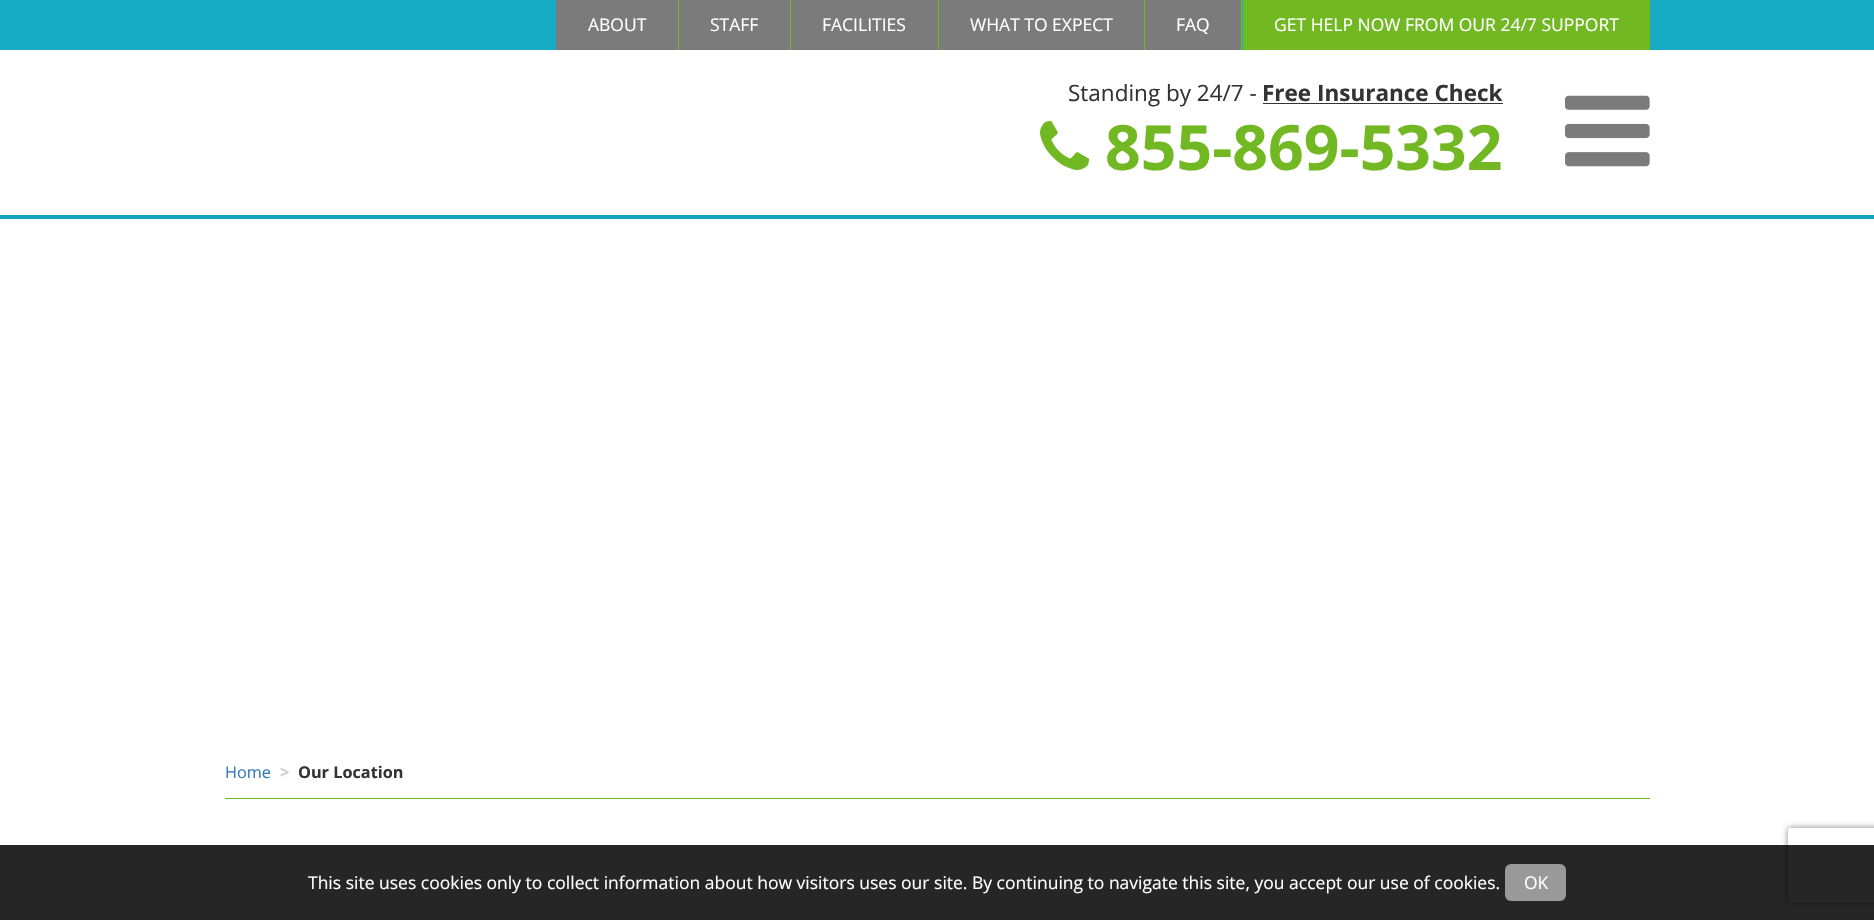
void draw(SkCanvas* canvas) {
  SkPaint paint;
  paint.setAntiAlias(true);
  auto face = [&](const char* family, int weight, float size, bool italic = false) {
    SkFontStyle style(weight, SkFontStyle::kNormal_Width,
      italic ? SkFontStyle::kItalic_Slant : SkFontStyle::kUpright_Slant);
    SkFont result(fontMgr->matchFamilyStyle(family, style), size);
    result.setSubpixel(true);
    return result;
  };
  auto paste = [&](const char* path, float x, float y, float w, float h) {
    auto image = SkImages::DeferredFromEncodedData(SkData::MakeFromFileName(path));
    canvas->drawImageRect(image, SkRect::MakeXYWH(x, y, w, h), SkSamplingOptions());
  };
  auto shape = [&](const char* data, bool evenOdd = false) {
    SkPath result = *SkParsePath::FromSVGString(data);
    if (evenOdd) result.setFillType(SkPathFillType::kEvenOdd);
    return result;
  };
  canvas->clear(0xffffffff);
  {
    const struct { float x, y, w, h; SkColor color; } items[] = {
      {0, 0, 1874, 50, 0xff15acc4},
      {678, 0, 1, 50, 0xff72b822},
      {556, 0, 122, 50, 0xff7b7b7b},
      {790, 0, 1, 50, 0xff72b822},
      {679, 0, 111, 50, 0xff7b7b7b},
      {938, 0, 1, 50, 0xff72b822},
      {791, 0, 147, 50, 0xff7b7b7b},
      {1144, 0, 1, 50, 0xff72b822},
      {939, 0, 205, 50, 0xff7b7b7b},
      {1241, 0, 1, 50, 0xff72b822},
      {1145, 0, 96, 50, 0xff7b7b7b},
      {1243, 0, 407, 50, 0xff72b822},
      {0, 215, 1874, 4, 0xff13a1c1},
      {1263, 103, 240, 1, 0xff333333},
    };
    for (auto [x, y, w, h, color] : items) {
      paint.setColor(color);
      canvas->drawRect(SkRect::MakeXYWH(x, y, w, h), paint);
    }
  }
  paste("img/1.png", 1040, 120, 50, 50);
  paste("img/2.png", 1565, 95, 85, 72);
  paint.setColor(0xff72b822);
  canvas->drawRect(SkRect::MakeXYWH(225, 798, 1425, 1), paint);
  canvas->save();
  canvas->clipPath(shape("M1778 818H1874V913H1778ZM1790.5 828H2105.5C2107 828 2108 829 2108 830.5V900.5C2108 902 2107 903 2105.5 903H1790.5C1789 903 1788 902 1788 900.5V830.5C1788 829 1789 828 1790.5 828Z", true), true);
  paint.setColor(0xff808080);
  paint.setMaskFilter(SkMaskFilter::MakeBlur(kNormal_SkBlurStyle, 3));
  canvas->drawRoundRect(SkRect::MakeXYWH(1788, 828, 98, 75), 2.5f, 2.5f, paint);
  paint.setMaskFilter(nullptr);
  canvas->restore();
  paint.setColor(0xd9000000);
  canvas->drawRect(SkRect::MakeXYWH(0, 845, 1874, 75), paint);
  paint.setColor(0xff999999);
  canvas->drawRoundRect(SkRect::MakeXYWH(1505, 864, 61, 37), 6, 6, paint);
  auto f0 = face("Open Sans", 400, 17.5f);
  paint.setColor(0xffffffff);
  {
    const struct { const char* s; float x, y; } items[] = {
      {"ABOUT", 588, 31},
      {"STAFF", 710, 31},
      {"FACILITIES", 822, 31},
      {"WHAT TO EXPECT", 970, 31},
      {"FAQ", 1176, 31},
      {"GET HELP NOW FROM OUR 24/7 SUPPORT", 1274, 31},
    };
    for (auto [s, x, y] : items) {
      canvas->drawString(s, x, y, f0, paint);
    }
  }
  auto f1 = face("Open Sans", 400, 22.5f);
  paint.setColor(0xff333333);
  canvas->drawString("Standing by 24/7 -", 1068, 101, f1, paint);
  auto f2 = face("Open Sans", 700, 22.5f);
  canvas->drawString("Free Insurance Check", 1262, 101, f2, paint);
  auto f3 = face("Open Sans", 700, 62.5f);
  paint.setColor(0xff72b822);
  canvas->drawString("855-869-5332", 1105, 170, f3, paint);
  auto f4 = face("Open Sans", 400, 16.25f);
  paint.setColor(0xff337ab7);
  canvas->drawString("Home", 225, 778, f4, paint);
  auto f5 = face("Open Sans", 700, 16.25f);
  paint.setColor(0xffcccccc);
  canvas->drawString(">", 280, 778, f5, paint);
  paint.setColor(0xff333333);
  canvas->drawString("Our Location", 298, 778, f5, paint);
  paint.setColor(0xffffffff);
  canvas->drawString("This site uses cookies only to collect information about how visitors uses our site. By continuing to navigate this site, you accept our use of cookies.", 308, 889, f0, paint);
  canvas->drawString("OK", 1524, 889, f0, paint);
}
